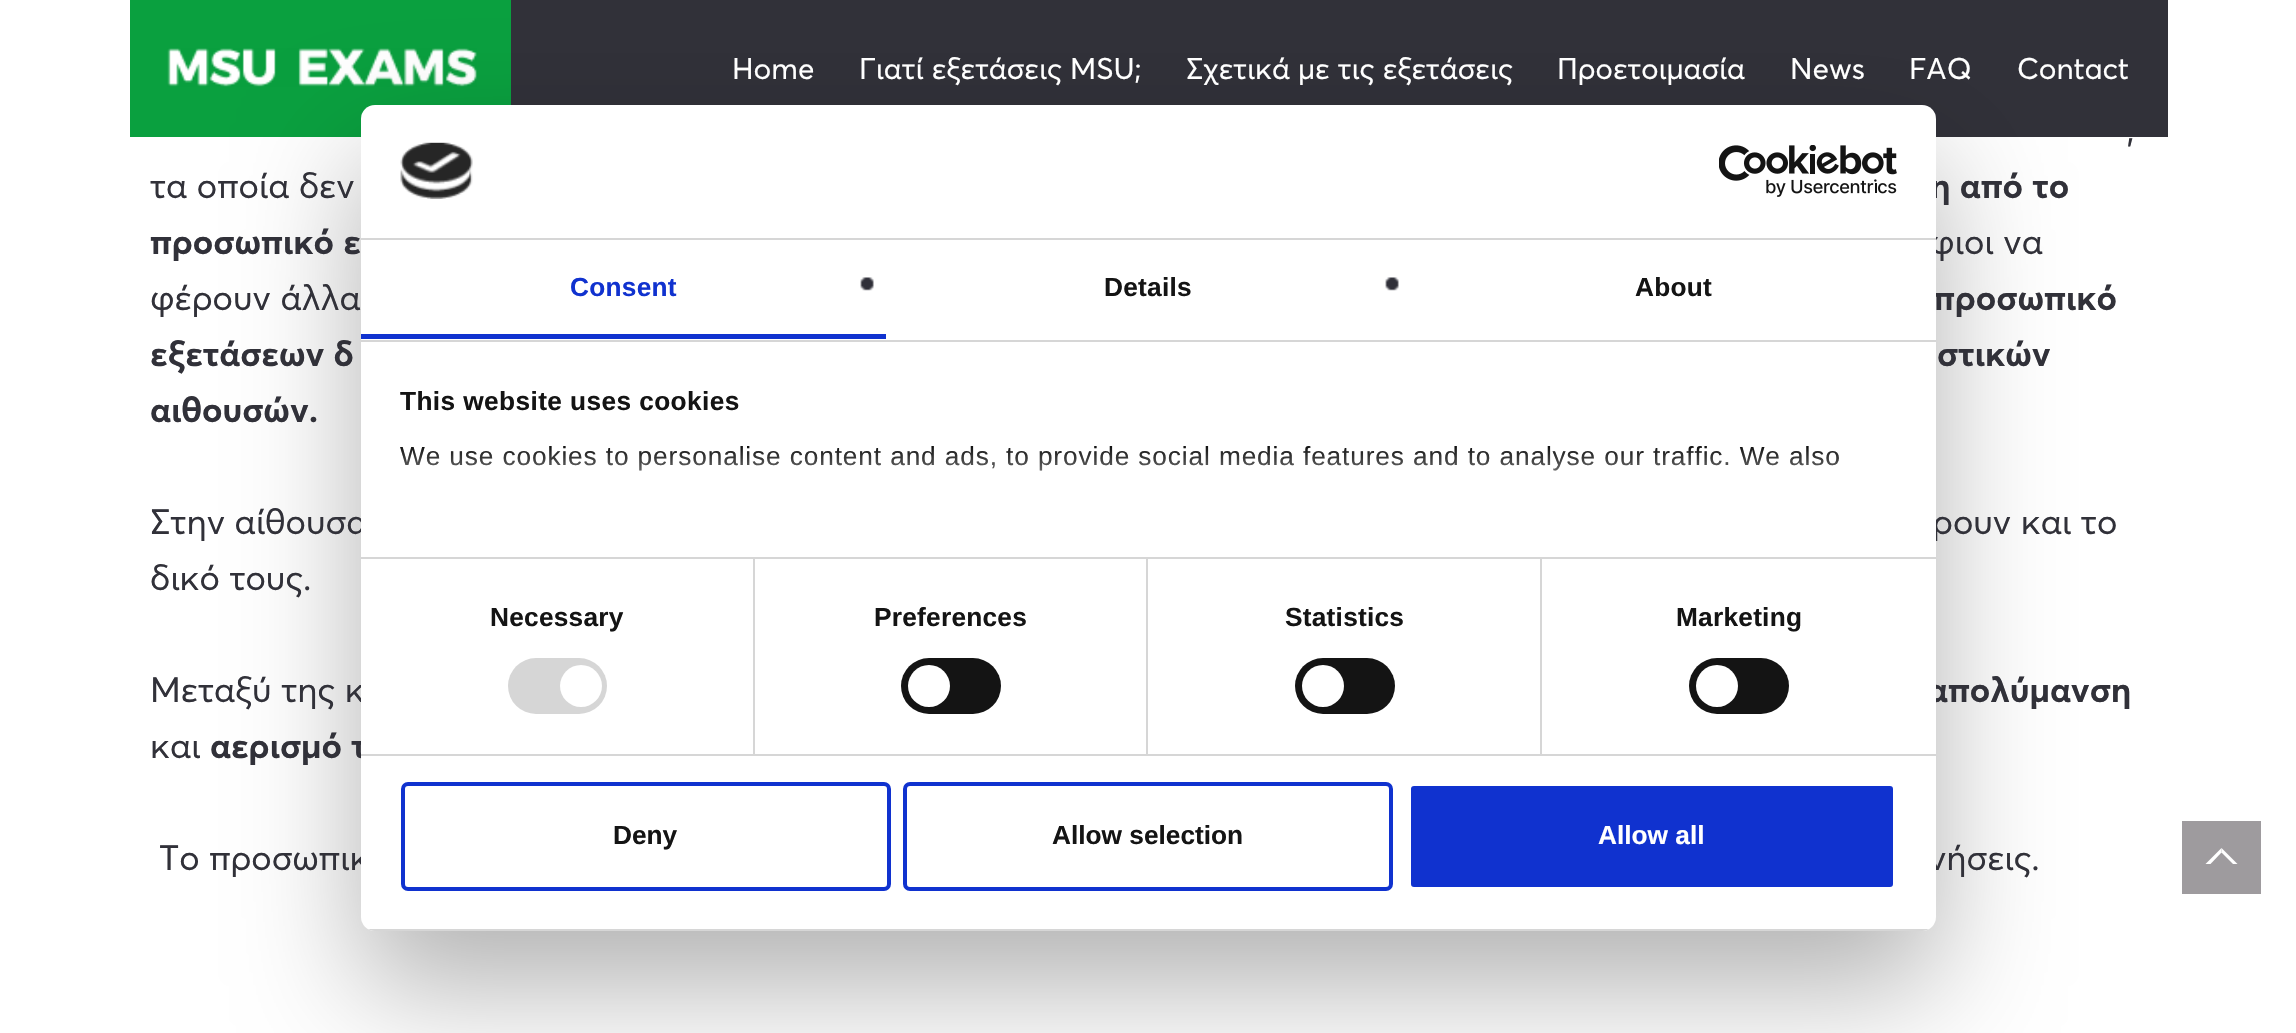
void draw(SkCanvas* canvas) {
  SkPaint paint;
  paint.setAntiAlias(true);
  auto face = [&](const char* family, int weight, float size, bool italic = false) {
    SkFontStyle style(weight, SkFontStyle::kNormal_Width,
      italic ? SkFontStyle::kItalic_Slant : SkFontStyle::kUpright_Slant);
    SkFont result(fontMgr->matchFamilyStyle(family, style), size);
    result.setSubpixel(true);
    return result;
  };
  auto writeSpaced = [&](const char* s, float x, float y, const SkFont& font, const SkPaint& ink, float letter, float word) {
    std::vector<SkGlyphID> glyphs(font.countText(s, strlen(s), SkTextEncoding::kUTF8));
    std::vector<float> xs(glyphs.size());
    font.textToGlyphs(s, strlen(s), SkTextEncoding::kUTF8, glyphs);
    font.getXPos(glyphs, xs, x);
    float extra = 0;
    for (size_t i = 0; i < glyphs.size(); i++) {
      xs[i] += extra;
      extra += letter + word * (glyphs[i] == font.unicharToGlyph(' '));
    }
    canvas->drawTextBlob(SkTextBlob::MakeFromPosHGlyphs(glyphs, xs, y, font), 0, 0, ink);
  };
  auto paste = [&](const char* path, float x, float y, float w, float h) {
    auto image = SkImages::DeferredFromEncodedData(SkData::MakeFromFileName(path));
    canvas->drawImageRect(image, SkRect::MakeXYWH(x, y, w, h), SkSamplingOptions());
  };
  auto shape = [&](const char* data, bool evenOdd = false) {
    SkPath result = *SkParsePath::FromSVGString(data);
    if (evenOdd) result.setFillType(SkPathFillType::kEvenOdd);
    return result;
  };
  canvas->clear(0xffffffff);
  paint.setColor(0xff313139);
  canvas->drawRect(SkRect::MakeXYWH(511, 0, 1657, 137), paint);
  paint.setColor(0xff0aa03f);
  canvas->drawRect(SkRect::MakeXYWH(130, 0, 381, 137), paint);
  paste("img/1.png", 167, 48, 310, 39);
  paint.setColor(0xff9e9b9e);
  canvas->drawRect(SkRect::MakeXYWH(2182, 821, 79, 73), paint);
  paint.setColor(0xffffffff);
  canvas->drawPath(shape("M2221.5 848L2237.5 864H2233L2221.5 852.5Z"), paint);
  canvas->drawPath(shape("M2205.5 864L2221.5 848V852.5L2210.5 864Z"), paint);
  paint.setColor(0x4d000000);
  paint.setMaskFilter(SkMaskFilter::MakeBlur(kNormal_SkBlurStyle, 59.5f));
  canvas->drawRoundRect(SkRect::MakeXYWH(361, 161, 1575, 826), 14, 14, paint);
  paint.setMaskFilter(nullptr);
  auto f0 = face("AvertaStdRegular", 400, 29.75f);
  paint.setColor(0xffffffff);
  {
    const struct { const char* s; float x, y; } items[] = {
      {"Home", 732, 79},
      {"Γιατί εξετάσεις MSU;", 859, 79},
      {"Σχετικά με τις εξετάσεις", 1186, 79},
      {"Προετοιμασία", 1557, 79},
      {"News", 1790, 79},
      {"FAQ", 1909, 79},
      {"Contact", 2017, 79},
    };
    for (auto [s, x, y] : items) {
      canvas->drawString(s, x, y, f0, paint);
    }
  }
  auto f1 = face("AvertaStdRegular", 400, 35);
  paint.setColor(0xff313139);
  canvas->drawString(",", 2127, 142, f1, paint);
  canvas->drawString("τα οποία δεν", 150, 198, f1, paint);
  auto f2 = face("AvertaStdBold", 400, 35);
  canvas->drawString("η από το", 1930, 198, f2, paint);
  canvas->drawString("προσωπικό ε", 150, 254, f2, paint);
  canvas->drawString("φιοι να", 1930, 254, f1, paint);
  canvas->drawString("φέρουν άλλα", 150, 310, f1, paint);
  {
    const struct { const char* s; float x, y; } items[] = {
      {"προσωπικό", 1933, 310},
      {"εξετάσεων δ", 150, 366},
      {"στικών", 1937, 366},
      {"αιθουσών.", 150, 422},
    };
    for (auto [s, x, y] : items) {
      canvas->drawString(s, x, y, f2, paint);
    }
  }
  {
    const struct { const char* s; float x, y; } items[] = {
      {"Στην αίθουσα", 150, 534},
      {"ρουν και το", 1932, 534},
      {"δικό τους.", 150, 590},
      {"Μεταξύ της κ", 150, 702},
    };
    for (auto [s, x, y] : items) {
      canvas->drawString(s, x, y, f1, paint);
    }
  }
  canvas->drawString("απολύμανση", 1927, 702, f2, paint);
  canvas->drawString("και", 150, 758, f1, paint);
  canvas->drawString("αερισμό τ", 210, 758, f2, paint);
  canvas->drawString("Το προσωπικ", 159, 870, f1, paint);
  canvas->drawString("νήσεις.", 1928, 870, f1, paint);
  paint.setColor(0xffffffff);
  canvas->drawRoundRect(SkRect::MakeXYWH(361, 105, 1575, 826), 14, 14, paint);
  paint.setColor(0xffd6d6d6);
  canvas->drawRect(SkRect::MakeXYWH(361, 238, 1575, 2), paint);
  paste("img/2.png", 400, 142, 73, 57);
  paste("img/3.png", 1719, 145, 178, 52);
  canvas->drawRect(SkRect::MakeXYWH(361, 340, 1575, 2), paint);
  paint.setColor(0xff1032cf);
  canvas->drawRect(SkRect::MakeXYWH(361, 334, 525, 5), paint);
  auto f3 = face("Liberation Sans", 700, 26.25f);
  writeSpaced("Consent", 570, 296, f3, paint, 0.25f, 0);
  paste("img/4.png", 860, 277, 14, 14);
  paint.setColor(0xff141414);
  writeSpaced("Details", 1104, 296, f3, paint, 0.25f, 0);
  paste("img/4.png", 1385, 277, 14, 14);
  writeSpaced("About", 1635, 296, f3, paint, 0.25f, 0);
  writeSpaced("This website uses cookies", 400, 410, f3, paint, 0.4f, 0);
  auto f4 = face("Liberation Sans", 400, 26.25f);
  writeSpaced("We use cookies to personalise content and ads, to provide social media features and to analyse our traffic. We also", 400, 465, f4, paint, 0.88f, 0);
  {
    const SkColor colors[] = {0xffffffff, 0xccffffff, 0x00ffffff};
    const float stops[] = {0, 0.5f, 1};
    const SkPoint ends[] = {{1131, 556}, {1131, 447}};
    paint.setShader(SkGradientShader::MakeLinear(ends, colors, stops, 3, SkTileMode::kClamp));
    paint.setAlpha(255);
  }
  canvas->drawRect(SkRect::MakeXYWH(400, 448, 1438, 23), paint);
  paint.setShader(nullptr);
  paint.setColor(0xffd6d6d6);
  canvas->drawRect(SkRect::MakeXYWH(361, 754, 1575, 2), paint);
  canvas->drawRect(SkRect::MakeXYWH(753, 558, 2, 196), paint);
  paint.setColor(0xff141414);
  writeSpaced("Necessary", 490, 626, f3, paint, 0.25f, 0);
  paint.setColor(0xffd6d6d6);
  canvas->drawRoundRect(SkRect::MakeXYWH(508, 658, 99, 56), 28, 28, paint);
  paint.setColor(0xffffffff);
  canvas->drawCircle(581, 686, 21, paint);
  paint.setColor(0xffd6d6d6);
  canvas->drawRect(SkRect::MakeXYWH(1146, 558, 2, 196), paint);
  paint.setColor(0xff141414);
  writeSpaced("Preferences", 874, 626, f3, paint, 0.25f, 0);
  canvas->drawRoundRect(SkRect::MakeXYWH(901, 658, 100, 56), 28, 28, paint);
  paint.setColor(0xffffffff);
  canvas->drawCircle(929, 686, 21, paint);
  paint.setColor(0xffd6d6d6);
  canvas->drawRect(SkRect::MakeXYWH(1540, 558, 2, 196), paint);
  canvas->drawRect(SkRect::MakeXYWH(361, 557, 1575, 2), paint);
  paint.setColor(0xff141414);
  writeSpaced("Statistics", 1285, 626, f3, paint, 0.25f, 0);
  canvas->drawRoundRect(SkRect::MakeXYWH(1295, 658, 100, 56), 28, 28, paint);
  paint.setColor(0xffffffff);
  canvas->drawCircle(1323, 686, 21, paint);
  paint.setColor(0xff141414);
  writeSpaced("Marketing", 1676, 626, f3, paint, 0.25f, 0);
  canvas->drawRoundRect(SkRect::MakeXYWH(1689, 658, 100, 56), 28, 28, paint);
  paint.setColor(0xffffffff);
  canvas->drawCircle(1717, 686, 21, paint);
  canvas->save();
  canvas->clipPath(shape("M375 105H1922C1929.5 105 1936 111.5 1936 119V917C1936 924.5 1929.5 931 1922 931H375C367.5 931 361 924.5 361 917V119C361 111.5 367.5 105 375 105Z"), true);
  paint.setColor(0xffd6d6d6);
  canvas->drawRect(SkRect::MakeXYWH(361, 929, 1575, 2), paint);
  canvas->restore();
  paint.setStroke(true);
  paint.setStrokeWidth(4);
  paint.setColor(0xff1032cf);
  canvas->drawRoundRect(SkRect::MakeXYWH(403, 784, 486, 105), 5, 5, paint);
  paint.setStroke(false);
  paint.setColor(0xff141414);
  canvas->drawString("Deny", 613, 844, f3, paint);
  paint.setStroke(true);
  paint.setColor(0xff1032cf);
  canvas->drawRoundRect(SkRect::MakeXYWH(905, 784, 486, 105), 5, 5, paint);
  paint.setStroke(false);
  paint.setColor(0xff141414);
  canvas->drawString("Allow selection", 1052, 844, f3, paint);
  paint.setColor(0xff1032cf);
  canvas->drawRoundRect(SkRect::MakeXYWH(1409, 784, 486, 105), 5, 5, paint);
  paint.setStroke(true);
  paint.setColor(0xffffffff);
  canvas->drawRoundRect(SkRect::MakeXYWH(1409, 784, 486, 105), 5, 5, paint);
  paint.setStroke(false);
  canvas->drawString("Allow all", 1598, 844, f3, paint);
}
